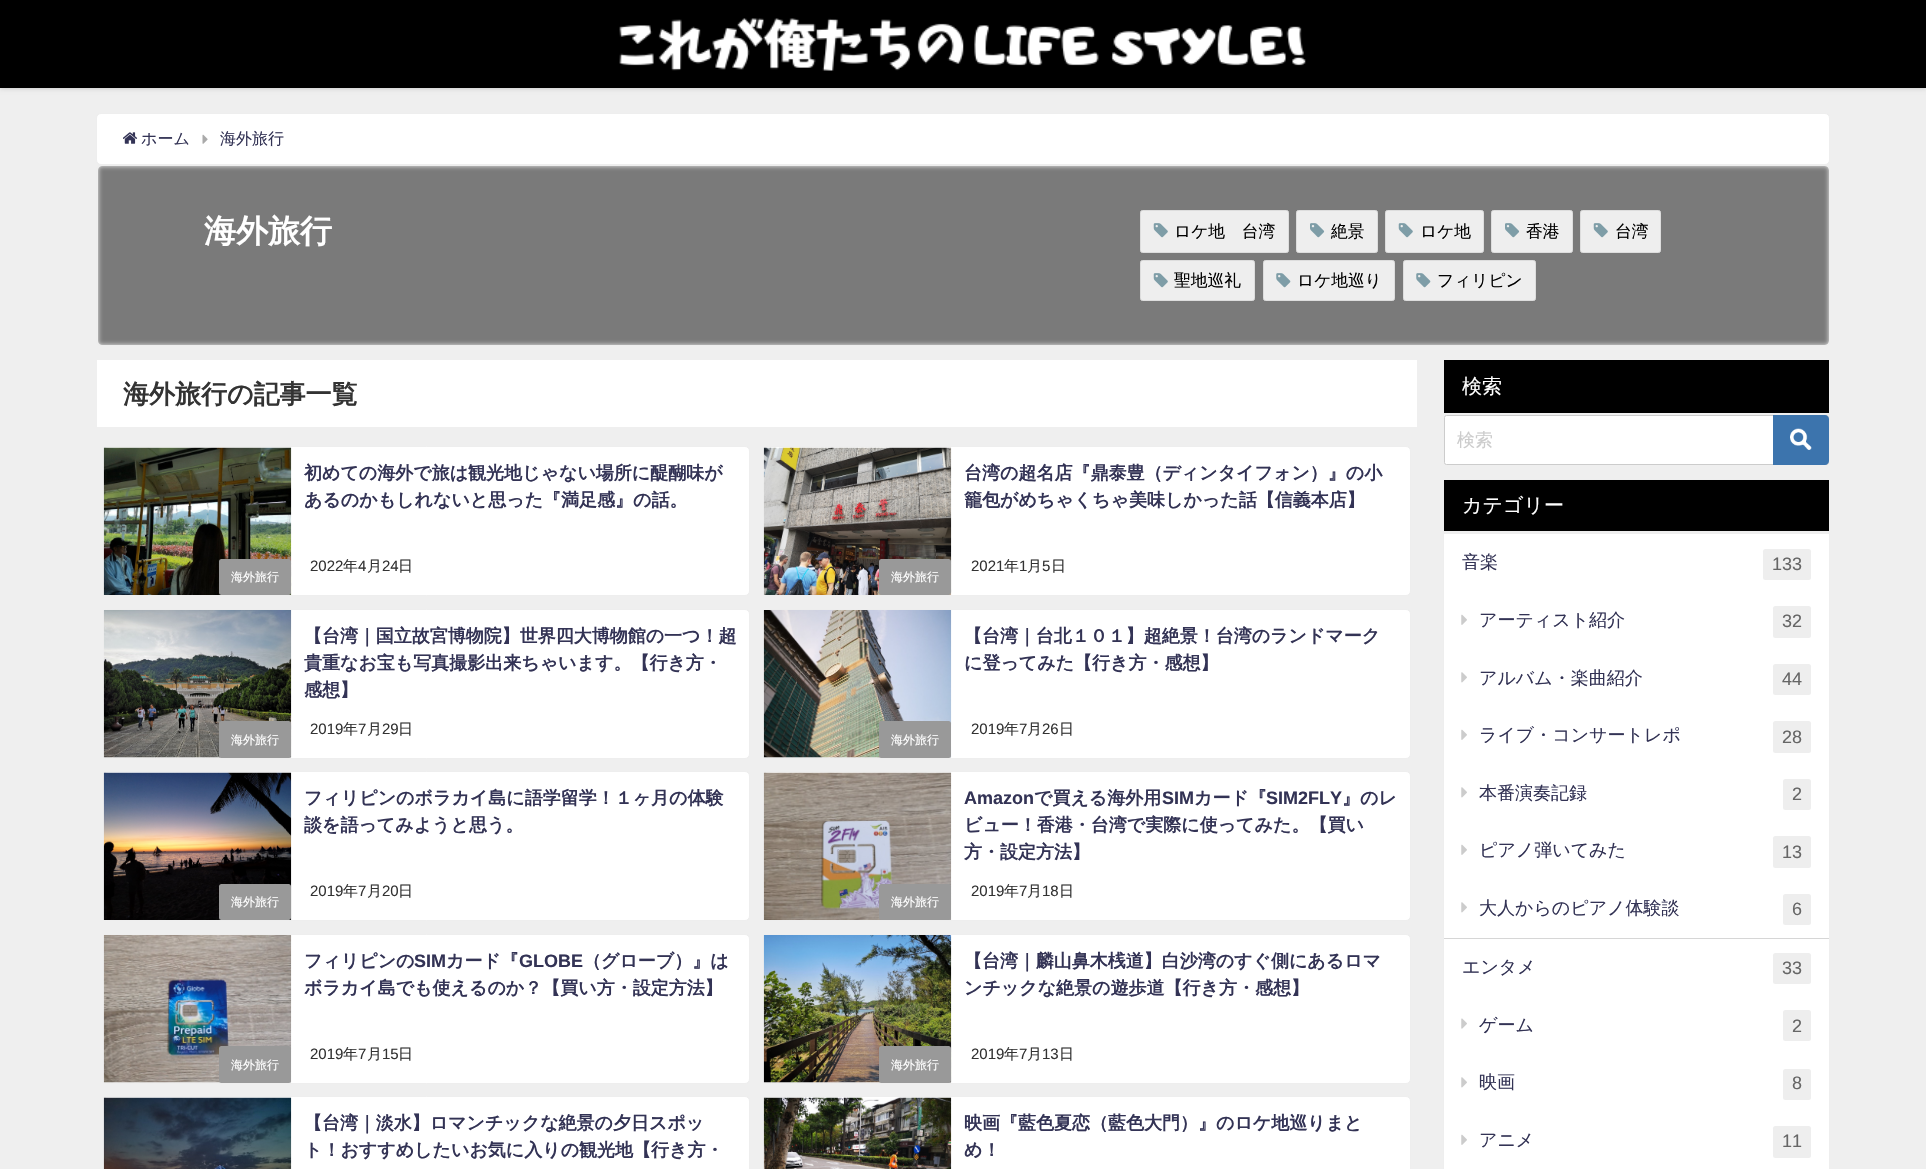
void draw(SkCanvas* canvas) {
  SkPaint paint;
  paint.setAntiAlias(true);
  auto face = [&](const char* family, int weight, float size, bool italic = false) {
    SkFontStyle style(weight, SkFontStyle::kNormal_Width,
      italic ? SkFontStyle::kItalic_Slant : SkFontStyle::kUpright_Slant);
    SkFont result(fontMgr->matchFamilyStyle(family, style), size);
    result.setSubpixel(true);
    return result;
  };
  auto paste = [&](const char* path, float x, float y, float w, float h) {
    auto image = SkImages::DeferredFromEncodedData(SkData::MakeFromFileName(path));
    canvas->drawImageRect(image, SkRect::MakeXYWH(x, y, w, h), SkSamplingOptions());
  };
  auto shape = [&](const char* data, bool evenOdd = false) {
    SkPath result = *SkParsePath::FromSVGString(data);
    if (evenOdd) result.setFillType(SkPathFillType::kEvenOdd);
    return result;
  };
  canvas->clear(0xffefefef);
  paint.setColor(0x33000000);
  paint.setMaskFilter(SkMaskFilter::MakeBlur(kNormal_SkBlurStyle, 2.5f));
  canvas->drawRect(SkRect::MakeXYWH(0, 0, 1926, 88), paint);
  paint.setMaskFilter(nullptr);
  paint.setColor(0xff000000);
  canvas->drawRect(SkRect::MakeXYWH(0, 0, 1926, 88), paint);
  paste("img/1.png", 619, 18, 687, 53);
  canvas->save();
  canvas->clipPath(shape("M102 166H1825C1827 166 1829 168 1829 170V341C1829 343 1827 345 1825 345H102C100 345 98 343 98 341V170C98 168 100 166 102 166Z"), true);
  paint.setColor(0xff7a7a7a);
  paint.setMaskFilter(SkMaskFilter::MakeBlur(kNormal_SkBlurStyle, 2.5f));
  canvas->drawRect(SkRect::MakeXYWH(98, 166, 1731, 179), paint);
  paint.setMaskFilter(nullptr);
  canvas->restore();
  paint.setColor(0xffffffff);
  canvas->drawRoundRect(SkRect::MakeXYWH(96.5f, 113.5f, 1733, 51), 4.5f, 4.5f, paint);
  paint.setStroke(true);
  paint.setStrokeWidth(1);
  paint.setColor(0xffeeeeee);
  canvas->drawRoundRect(SkRect::MakeXYWH(96.5f, 113.5f, 1733, 51), 4.5f, 4.5f, paint);
  paste("img/2.png", 123, 132, 15, 12);
  paste("img/3.png", 202, 134, 6, 10);
  canvas->drawRoundRect(SkRect::MakeXYWH(96.5f, 165.5f, 1733, 180), 4.5f, 4.5f, paint);
  paint.setStroke(false);
  canvas->drawRoundRect(SkRect::MakeXYWH(1140.5f, 210.5f, 148, 42), 2, 2, paint);
  paint.setStroke(true);
  paint.setColor(0xffdddddd);
  canvas->drawRoundRect(SkRect::MakeXYWH(1140.5f, 210.5f, 148, 42), 2, 2, paint);
  paste("img/4.png", 1153, 223, 15, 15);
  paint.setStroke(false);
  paint.setColor(0xffeeeeee);
  canvas->drawRoundRect(SkRect::MakeXYWH(1296.5f, 210.5f, 81, 42), 2, 2, paint);
  paint.setStroke(true);
  paint.setColor(0xffdddddd);
  canvas->drawRoundRect(SkRect::MakeXYWH(1296.5f, 210.5f, 81, 42), 2, 2, paint);
  paste("img/5.png", 1310, 223, 15, 15);
  paint.setStroke(false);
  paint.setColor(0xffeeeeee);
  canvas->drawRoundRect(SkRect::MakeXYWH(1385.5f, 210.5f, 98, 42), 2, 2, paint);
  paint.setStroke(true);
  paint.setColor(0xffdddddd);
  canvas->drawRoundRect(SkRect::MakeXYWH(1385.5f, 210.5f, 98, 42), 2, 2, paint);
  paste("img/4.png", 1398, 223, 15, 15);
  paint.setStroke(false);
  paint.setColor(0xffeeeeee);
  canvas->drawRoundRect(SkRect::MakeXYWH(1491.5f, 210.5f, 81, 42), 2, 2, paint);
  paint.setStroke(true);
  paint.setColor(0xffdddddd);
  canvas->drawRoundRect(SkRect::MakeXYWH(1491.5f, 210.5f, 81, 42), 2, 2, paint);
  paste("img/5.png", 1505, 223, 15, 15);
  paint.setStroke(false);
  paint.setColor(0xffeeeeee);
  canvas->drawRoundRect(SkRect::MakeXYWH(1580.5f, 210.5f, 80, 42), 2, 2, paint);
  paint.setStroke(true);
  paint.setColor(0xffdddddd);
  canvas->drawRoundRect(SkRect::MakeXYWH(1580.5f, 210.5f, 80, 42), 2, 2, paint);
  paste("img/4.png", 1593, 223, 15, 15);
  paint.setStroke(false);
  paint.setColor(0xffeeeeee);
  canvas->drawRoundRect(SkRect::MakeXYWH(1140.5f, 260.5f, 114, 40), 2, 2, paint);
  paint.setStroke(true);
  paint.setColor(0xffdddddd);
  canvas->drawRoundRect(SkRect::MakeXYWH(1140.5f, 260.5f, 114, 40), 2, 2, paint);
  paste("img/4.png", 1153, 273, 15, 15);
  paint.setStroke(false);
  paint.setColor(0xffeeeeee);
  canvas->drawRoundRect(SkRect::MakeXYWH(1263.5f, 260.5f, 131, 40), 2, 2, paint);
  paint.setStroke(true);
  paint.setColor(0xffdddddd);
  canvas->drawRoundRect(SkRect::MakeXYWH(1263.5f, 260.5f, 131, 40), 2, 2, paint);
  paste("img/6.png", 1276, 273, 15, 15);
  paint.setStroke(false);
  paint.setColor(0xffeeeeee);
  canvas->drawRoundRect(SkRect::MakeXYWH(1403.5f, 260.5f, 132, 40), 2, 2, paint);
  paint.setStroke(true);
  paint.setColor(0xffdddddd);
  canvas->drawRoundRect(SkRect::MakeXYWH(1403.5f, 260.5f, 132, 40), 2, 2, paint);
  paste("img/6.png", 1416, 273, 15, 15);
  paint.setStroke(false);
  paint.setColor(0xffffffff);
  canvas->drawRect(SkRect::MakeXYWH(97, 360, 1320, 67), paint);
  canvas->drawRoundRect(SkRect::MakeXYWH(103.5f, 446.5f, 646, 149), 4.5f, 4.5f, paint);
  paint.setStroke(true);
  paint.setColor(0xffeeeeee);
  canvas->drawRoundRect(SkRect::MakeXYWH(103.5f, 446.5f, 646, 149), 4.5f, 4.5f, paint);
  paste("img/7.png", 103, 447, 189, 148);
  paint.setStroke(false);
  paint.setColor(0xff999999);
  canvas->drawRoundRect(SkRect::MakeXYWH(219, 559, 72, 36), 2.5f, 2.5f, paint);
  paint.setColor(0xffffffff);
  canvas->drawRoundRect(SkRect::MakeXYWH(763.5f, 446.5f, 647, 149), 4.5f, 4.5f, paint);
  paint.setStroke(true);
  paint.setColor(0xffeeeeee);
  canvas->drawRoundRect(SkRect::MakeXYWH(763.5f, 446.5f, 647, 149), 4.5f, 4.5f, paint);
  paste("img/8.png", 763, 447, 189, 148);
  paint.setStroke(false);
  paint.setColor(0xff999999);
  canvas->drawRoundRect(SkRect::MakeXYWH(879, 559, 72, 36), 2.5f, 2.5f, paint);
  paint.setColor(0xffffffff);
  canvas->drawRoundRect(SkRect::MakeXYWH(103.5f, 609.5f, 646, 149), 4.5f, 4.5f, paint);
  paint.setStroke(true);
  paint.setColor(0xffeeeeee);
  canvas->drawRoundRect(SkRect::MakeXYWH(103.5f, 609.5f, 646, 149), 4.5f, 4.5f, paint);
  paint.setStroke(false);
  canvas->drawRect(SkRect::MakeXYWH(104, 757, 187, 1), paint);
  paste("img/9.png", 103, 610, 189, 148);
  paint.setColor(0xff999999);
  canvas->drawRoundRect(SkRect::MakeXYWH(219, 721, 72, 37), 2.5f, 2.5f, paint);
  paint.setColor(0xffffffff);
  canvas->drawRoundRect(SkRect::MakeXYWH(763.5f, 609.5f, 647, 149), 4.5f, 4.5f, paint);
  paint.setStroke(true);
  paint.setColor(0xffeeeeee);
  canvas->drawRoundRect(SkRect::MakeXYWH(763.5f, 609.5f, 647, 149), 4.5f, 4.5f, paint);
  paint.setStroke(false);
  canvas->drawRect(SkRect::MakeXYWH(764, 757, 187, 1), paint);
  paste("img/10.png", 763, 610, 189, 148);
  paint.setColor(0xff999999);
  canvas->drawRoundRect(SkRect::MakeXYWH(879, 721, 72, 37), 2.5f, 2.5f, paint);
  paint.setColor(0xffffffff);
  canvas->drawRoundRect(SkRect::MakeXYWH(103.5f, 771.5f, 646, 149), 4.5f, 4.5f, paint);
  paint.setStroke(true);
  paint.setColor(0xffeeeeee);
  canvas->drawRoundRect(SkRect::MakeXYWH(103.5f, 771.5f, 646, 149), 4.5f, 4.5f, paint);
  paste("img/11.png", 103, 772, 189, 148);
  paint.setStroke(false);
  paint.setColor(0xff999999);
  canvas->drawRoundRect(SkRect::MakeXYWH(219, 884, 72, 36), 2.5f, 2.5f, paint);
  paint.setColor(0xffffffff);
  canvas->drawRoundRect(SkRect::MakeXYWH(763.5f, 771.5f, 647, 149), 4.5f, 4.5f, paint);
  paint.setStroke(true);
  paint.setColor(0xffeeeeee);
  canvas->drawRoundRect(SkRect::MakeXYWH(763.5f, 771.5f, 647, 149), 4.5f, 4.5f, paint);
  paste("img/12.png", 763, 772, 189, 148);
  paint.setStroke(false);
  paint.setColor(0xff999999);
  canvas->drawRoundRect(SkRect::MakeXYWH(879, 884, 72, 36), 2.5f, 2.5f, paint);
  paint.setColor(0xffffffff);
  canvas->drawRoundRect(SkRect::MakeXYWH(103.5f, 934.5f, 646, 149), 4.5f, 4.5f, paint);
  paint.setStroke(true);
  paint.setColor(0xffeeeeee);
  canvas->drawRoundRect(SkRect::MakeXYWH(103.5f, 934.5f, 646, 149), 4.5f, 4.5f, paint);
  paint.setStroke(false);
  canvas->drawRect(SkRect::MakeXYWH(104, 1082, 187, 1), paint);
  paste("img/13.png", 103, 935, 189, 148);
  paint.setColor(0xff999999);
  canvas->drawRoundRect(SkRect::MakeXYWH(219, 1046, 72, 37), 2.5f, 2.5f, paint);
  paint.setColor(0xffffffff);
  canvas->drawRoundRect(SkRect::MakeXYWH(763.5f, 934.5f, 647, 149), 4.5f, 4.5f, paint);
  paint.setStroke(true);
  paint.setColor(0xffeeeeee);
  canvas->drawRoundRect(SkRect::MakeXYWH(763.5f, 934.5f, 647, 149), 4.5f, 4.5f, paint);
  paint.setStroke(false);
  canvas->drawRect(SkRect::MakeXYWH(764, 1082, 187, 1), paint);
  paste("img/14.png", 763, 935, 189, 148);
  paint.setColor(0xff999999);
  canvas->drawRoundRect(SkRect::MakeXYWH(879, 1046, 72, 37), 2.5f, 2.5f, paint);
  paint.setColor(0xffffffff);
  canvas->drawRoundRect(SkRect::MakeXYWH(103.5f, 1096.5f, 646, 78), 4.5f, 4.5f, paint);
  paint.setStroke(true);
  paint.setColor(0xffeeeeee);
  canvas->drawRoundRect(SkRect::MakeXYWH(103.5f, 1096.5f, 646, 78), 4.5f, 4.5f, paint);
  paste("img/15.png", 103, 1097, 189, 72);
  paint.setStroke(false);
  paint.setColor(0xffffffff);
  canvas->drawRoundRect(SkRect::MakeXYWH(763.5f, 1096.5f, 647, 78), 4.5f, 4.5f, paint);
  paint.setStroke(true);
  paint.setColor(0xffeeeeee);
  canvas->drawRoundRect(SkRect::MakeXYWH(763.5f, 1096.5f, 647, 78), 4.5f, 4.5f, paint);
  paste("img/16.png", 763, 1097, 189, 72);
  paint.setStroke(false);
  paint.setColor(0xff000000);
  canvas->drawRect(SkRect::MakeXYWH(1444, 360, 385, 53), paint);
  paint.setColor(0xffffffff);
  canvas->drawRoundRect(SkRect::MakeXYWH(1444.5f, 415.5f, 384, 49), 2, 2, paint);
  paint.setStroke(true);
  paint.setColor(0xffcccccc);
  canvas->drawRoundRect(SkRect::MakeXYWH(1444.5f, 415.5f, 384, 49), 2, 2, paint);
  paint.setStroke(false);
  paint.setColor(0xff3c74ad);
  canvas->drawPath(shape("M1773 415H1825C1827 415 1829 417 1829 419V461C1829 463 1827 465 1825 465H1773Z"), paint);
  paste("img/17.png", 1790, 428, 22, 22);
  paint.setColor(0xffffffff);
  canvas->drawRoundRect(SkRect::MakeXYWH(1443.5f, 479.5f, 386, 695), 4.5f, 4.5f, paint);
  paint.setStroke(true);
  paint.setColor(0xffeeeeee);
  canvas->drawRoundRect(SkRect::MakeXYWH(1443.5f, 479.5f, 386, 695), 4.5f, 4.5f, paint);
  paint.setStroke(false);
  {
    const struct { float x, y, w, h; SkColor color; } items[] = {
      {1444, 480, 385, 51, 0xff000000},
      {1444, 531, 385, 3, 0xffeeeeee},
      {1444, 938, 385, 1, 0xffd6d6d6},
    };
    for (auto [x, y, w, h, color] : items) {
      paint.setColor(color);
      canvas->drawRect(SkRect::MakeXYWH(x, y, w, h), paint);
    }
  }
  paint.setColor(0xffeeeeee);
  canvas->drawRoundRect(SkRect::MakeXYWH(1763, 549, 48, 31), 2.5f, 2.5f, paint);
  paste("img/18.png", 1461, 614, 6, 11);
  canvas->drawRoundRect(SkRect::MakeXYWH(1773, 606, 38, 32), 2.5f, 2.5f, paint);
  paste("img/19.png", 1461, 672, 6, 11);
  canvas->drawRoundRect(SkRect::MakeXYWH(1773, 664, 38, 31), 2.5f, 2.5f, paint);
  paste("img/18.png", 1461, 729, 6, 11);
  canvas->drawRoundRect(SkRect::MakeXYWH(1773, 721, 38, 32), 2.5f, 2.5f, paint);
  paste("img/19.png", 1461, 787, 6, 11);
  canvas->drawRoundRect(SkRect::MakeXYWH(1783, 779, 28, 31), 2.5f, 2.5f, paint);
  paste("img/18.png", 1461, 844, 6, 11);
  canvas->drawRoundRect(SkRect::MakeXYWH(1773, 836, 38, 32), 2.5f, 2.5f, paint);
  paste("img/19.png", 1461, 902, 6, 11);
  canvas->drawRoundRect(SkRect::MakeXYWH(1783, 894, 28, 31), 2.5f, 2.5f, paint);
  canvas->drawRoundRect(SkRect::MakeXYWH(1773, 953, 38, 31), 2.5f, 2.5f, paint);
  paste("img/20.png", 1461, 1018, 6, 11);
  canvas->drawRoundRect(SkRect::MakeXYWH(1783, 1010, 28, 31), 2.5f, 2.5f, paint);
  paste("img/19.png", 1461, 1077, 6, 11);
  canvas->drawRoundRect(SkRect::MakeXYWH(1783, 1069, 28, 31), 2.5f, 2.5f, paint);
  paste("img/18.png", 1461, 1134, 6, 11);
  canvas->drawRoundRect(SkRect::MakeXYWH(1773, 1126, 38, 32), 2.5f, 2.5f, paint);
  auto f0 = face("WenQuanYi Zen Hei", 500, 16);
  paint.setColor(0xff333355);
  canvas->drawString("ホーム", 141, 144, f0, paint);
  canvas->drawString("海外旅行", 220, 144, f0, paint);
  auto f1 = face("WenQuanYi Zen Hei", 700, 32);
  paint.setColor(0xffffffff);
  canvas->drawString("海外旅行", 204, 242, f1, paint);
  auto f2 = face("WenQuanYi Zen Hei", 500, 16.75f);
  paint.setColor(0xff000000);
  {
    const struct { const char* s; float x, y; } items[] = {
      {"ロケ地　台湾", 1174, 237},
      {"絶景", 1331, 237},
      {"ロケ地", 1420, 237},
      {"香港", 1526, 237},
      {"台湾", 1615, 237},
      {"聖地巡礼", 1174, 286},
      {"ロケ地巡り", 1297, 286},
      {"フィリピン", 1437, 286},
    };
    for (auto [s, x, y] : items) {
      canvas->drawString(s, x, y, f2, paint);
    }
  }
  auto f3 = face("WenQuanYi Zen Hei", 700, 26);
  paint.setColor(0xff333333);
  canvas->drawString("海外旅行の記事一覧", 123, 403, f3, paint);
  auto f4 = face("WenQuanYi Zen Hei", 700, 18);
  paint.setColor(0xff333355);
  canvas->drawString("初めての海外で旅は観光地じゃない場所に醍醐味が", 304, 479, f4, paint);
  canvas->drawString("あるのかもしれないと思った『満足感』の話。", 304, 506, f4, paint);
  auto f5 = face("Liberation Sans", 400, 15);
  paint.setColor(0xff333333);
  canvas->drawString("2022", 310, 571, f5, paint);
  auto f6 = face("WenQuanYi Zen Hei", 500, 15);
  canvas->drawString("年", 343, 571, f6, paint);
  canvas->drawString("4", 358, 571, f5, paint);
  canvas->drawString("月", 367, 571, f6, paint);
  canvas->drawString("24", 382, 571, f5, paint);
  canvas->drawString("日", 398, 571, f6, paint);
  auto f7 = face("WenQuanYi Zen Hei", 500, 12);
  paint.setColor(0xffffffff);
  canvas->drawString("海外旅行", 231, 581, f7, paint);
  paint.setColor(0xff333355);
  canvas->drawString("台湾の超名店『鼎泰豊（ディンタイフォン）』の小", 964, 479, f4, paint);
  canvas->drawString("籠包がめちゃくちゃ美味しかった話【信義本店】", 964, 506, f4, paint);
  paint.setColor(0xff333333);
  canvas->drawString("2021", 971, 571, f5, paint);
  canvas->drawString("年", 1004, 571, f6, paint);
  canvas->drawString("1", 1019, 571, f5, paint);
  canvas->drawString("月", 1027, 571, f6, paint);
  canvas->drawString("5", 1042, 571, f5, paint);
  canvas->drawString("日", 1051, 571, f6, paint);
  paint.setColor(0xffffffff);
  canvas->drawString("海外旅行", 891, 581, f7, paint);
  paint.setColor(0xff333355);
  {
    const struct { const char* s; float x, y; } items[] = {
      {"【台湾｜国立故宮博物院】世界四大博物館の一つ！超", 304, 642},
      {"貴重なお宝も写真撮影出来ちゃいます。【行き方・", 304, 669},
      {"感想】", 304, 696},
    };
    for (auto [s, x, y] : items) {
      canvas->drawString(s, x, y, f4, paint);
    }
  }
  paint.setColor(0xff333333);
  canvas->drawString("2019", 310, 734, f5, paint);
  canvas->drawString("年", 343, 734, f6, paint);
  canvas->drawString("7", 358, 734, f5, paint);
  canvas->drawString("月", 367, 734, f6, paint);
  canvas->drawString("29", 382, 734, f5, paint);
  canvas->drawString("日", 398, 734, f6, paint);
  paint.setColor(0xffffffff);
  canvas->drawString("海外旅行", 231, 744, f7, paint);
  paint.setColor(0xff333355);
  canvas->drawString("【台湾｜台北１０１】超絶景！台湾のランドマーク", 964, 642, f4, paint);
  canvas->drawString("に登ってみた【行き方・感想】", 964, 669, f4, paint);
  paint.setColor(0xff333333);
  canvas->drawString("2019", 971, 734, f5, paint);
  canvas->drawString("年", 1004, 734, f6, paint);
  canvas->drawString("7", 1019, 734, f5, paint);
  canvas->drawString("月", 1027, 734, f6, paint);
  canvas->drawString("26", 1042, 734, f5, paint);
  canvas->drawString("日", 1059, 734, f6, paint);
  paint.setColor(0xffffffff);
  canvas->drawString("海外旅行", 891, 744, f7, paint);
  paint.setColor(0xff333355);
  canvas->drawString("フィリピンのボラカイ島に語学留学！１ヶ月の体験", 304, 804, f4, paint);
  canvas->drawString("談を語ってみようと思う。", 304, 831, f4, paint);
  paint.setColor(0xff333333);
  canvas->drawString("2019", 310, 896, f5, paint);
  canvas->drawString("年", 343, 896, f6, paint);
  canvas->drawString("7", 358, 896, f5, paint);
  canvas->drawString("月", 367, 896, f6, paint);
  canvas->drawString("20", 382, 896, f5, paint);
  canvas->drawString("日", 398, 896, f6, paint);
  paint.setColor(0xffffffff);
  canvas->drawString("海外旅行", 231, 906, f7, paint);
  auto f8 = face("Liberation Sans", 700, 18);
  paint.setColor(0xff333355);
  canvas->drawString("Amazon", 964, 804, f8, paint);
  canvas->drawString("で買える海外用", 1034, 804, f4, paint);
  canvas->drawString("SIM", 1162, 804, f8, paint);
  canvas->drawString("カード『", 1194, 804, f4, paint);
  canvas->drawString("SIM2FLY", 1266, 804, f8, paint);
  {
    const struct { const char* s; float x, y; } items[] = {
      {"』のレ", 1342, 804},
      {"ビュー！香港・台湾で実際に使ってみた。【買い", 964, 831},
      {"方・設定方法】", 964, 858},
    };
    for (auto [s, x, y] : items) {
      canvas->drawString(s, x, y, f4, paint);
    }
  }
  paint.setColor(0xff333333);
  canvas->drawString("2019", 971, 896, f5, paint);
  canvas->drawString("年", 1004, 896, f6, paint);
  canvas->drawString("7", 1019, 896, f5, paint);
  canvas->drawString("月", 1027, 896, f6, paint);
  canvas->drawString("18", 1042, 896, f5, paint);
  canvas->drawString("日", 1059, 896, f6, paint);
  paint.setColor(0xffffffff);
  canvas->drawString("海外旅行", 891, 906, f7, paint);
  paint.setColor(0xff333355);
  canvas->drawString("フィリピンの", 304, 967, f4, paint);
  canvas->drawString("SIM", 414, 967, f8, paint);
  canvas->drawString("カード『", 446, 967, f4, paint);
  canvas->drawString("GLOBE", 519, 967, f8, paint);
  canvas->drawString("（グローブ）』は", 583, 967, f4, paint);
  canvas->drawString("ボラカイ島でも使えるのか？【買い方・設定方法】", 304, 994, f4, paint);
  paint.setColor(0xff333333);
  canvas->drawString("2019", 310, 1059, f5, paint);
  canvas->drawString("年", 343, 1059, f6, paint);
  canvas->drawString("7", 358, 1059, f5, paint);
  canvas->drawString("月", 367, 1059, f6, paint);
  canvas->drawString("15", 382, 1059, f5, paint);
  canvas->drawString("日", 398, 1059, f6, paint);
  paint.setColor(0xffffffff);
  canvas->drawString("海外旅行", 231, 1069, f7, paint);
  paint.setColor(0xff333355);
  canvas->drawString("【台湾｜麟山鼻木桟道】白沙湾のすぐ側にあるロマ", 964, 967, f4, paint);
  canvas->drawString("ンチックな絶景の遊歩道【行き方・感想】", 964, 994, f4, paint);
  paint.setColor(0xff333333);
  canvas->drawString("2019", 971, 1059, f5, paint);
  canvas->drawString("年", 1004, 1059, f6, paint);
  canvas->drawString("7", 1019, 1059, f5, paint);
  canvas->drawString("月", 1027, 1059, f6, paint);
  canvas->drawString("13", 1042, 1059, f5, paint);
  canvas->drawString("日", 1059, 1059, f6, paint);
  paint.setColor(0xffffffff);
  canvas->drawString("海外旅行", 891, 1069, f7, paint);
  paint.setColor(0xff333355);
  {
    const struct { const char* s; float x, y; } items[] = {
      {"【台湾｜淡水】ロマンチックな絶景の夕日スポッ", 304, 1129},
      {"ト！おすすめしたいお気に入りの観光地【行き方・", 304, 1156},
      {"映画『藍色夏恋（藍色大門）』のロケ地巡りまと", 964, 1129},
      {"め！", 964, 1156},
    };
    for (auto [s, x, y] : items) {
      canvas->drawString(s, x, y, f4, paint);
    }
  }
  auto f9 = face("WenQuanYi Zen Hei", 500, 20);
  paint.setColor(0xffffffff);
  canvas->drawString("検索", 1462, 393, f9, paint);
  auto f10 = face("WenQuanYi Zen Hei", 500, 18);
  paint.setColor(0xffcccccc);
  canvas->drawString("検索", 1457, 446, f10, paint);
  paint.setColor(0xffffffff);
  canvas->drawString("カテゴリー", 1462, 512, f9, paint);
  paint.setColor(0xff333355);
  canvas->drawString("音楽", 1462, 568, f10, paint);
  auto f11 = face("Liberation Sans", 400, 18);
  paint.setColor(0xff666666);
  canvas->drawString("133", 1772, 570, f11, paint);
  paint.setColor(0xff333355);
  canvas->drawString("アーティスト紹介", 1479, 626, f10, paint);
  paint.setColor(0xff666666);
  canvas->drawString("32", 1782, 627, f11, paint);
  paint.setColor(0xff333355);
  canvas->drawString("アルバム・楽曲紹介", 1479, 684, f10, paint);
  paint.setColor(0xff666666);
  canvas->drawString("44", 1782, 685, f11, paint);
  paint.setColor(0xff333355);
  canvas->drawString("ライブ・コンサートレポ", 1479, 741, f10, paint);
  paint.setColor(0xff666666);
  canvas->drawString("28", 1782, 743, f11, paint);
  paint.setColor(0xff333355);
  canvas->drawString("本番演奏記録", 1479, 799, f10, paint);
  paint.setColor(0xff666666);
  canvas->drawString("2", 1792, 800, f11, paint);
  paint.setColor(0xff333355);
  canvas->drawString("ピアノ弾いてみた", 1479, 856, f10, paint);
  paint.setColor(0xff666666);
  canvas->drawString("13", 1782, 858, f11, paint);
  paint.setColor(0xff333355);
  canvas->drawString("大人からのピアノ体験談", 1479, 914, f10, paint);
  paint.setColor(0xff666666);
  canvas->drawString("6", 1792, 915, f11, paint);
  paint.setColor(0xff333355);
  canvas->drawString("エンタメ", 1462, 973, f10, paint);
  paint.setColor(0xff666666);
  canvas->drawString("33", 1782, 974, f11, paint);
  paint.setColor(0xff333355);
  canvas->drawString("ゲーム", 1479, 1031, f10, paint);
  paint.setColor(0xff666666);
  canvas->drawString("2", 1792, 1032, f11, paint);
  paint.setColor(0xff333355);
  canvas->drawString("映画", 1479, 1088, f10, paint);
  paint.setColor(0xff666666);
  canvas->drawString("8", 1792, 1089, f11, paint);
  paint.setColor(0xff333355);
  canvas->drawString("アニメ", 1479, 1146, f10, paint);
  paint.setColor(0xff666666);
  canvas->drawString("11", 1782, 1147, f11, paint);
}
